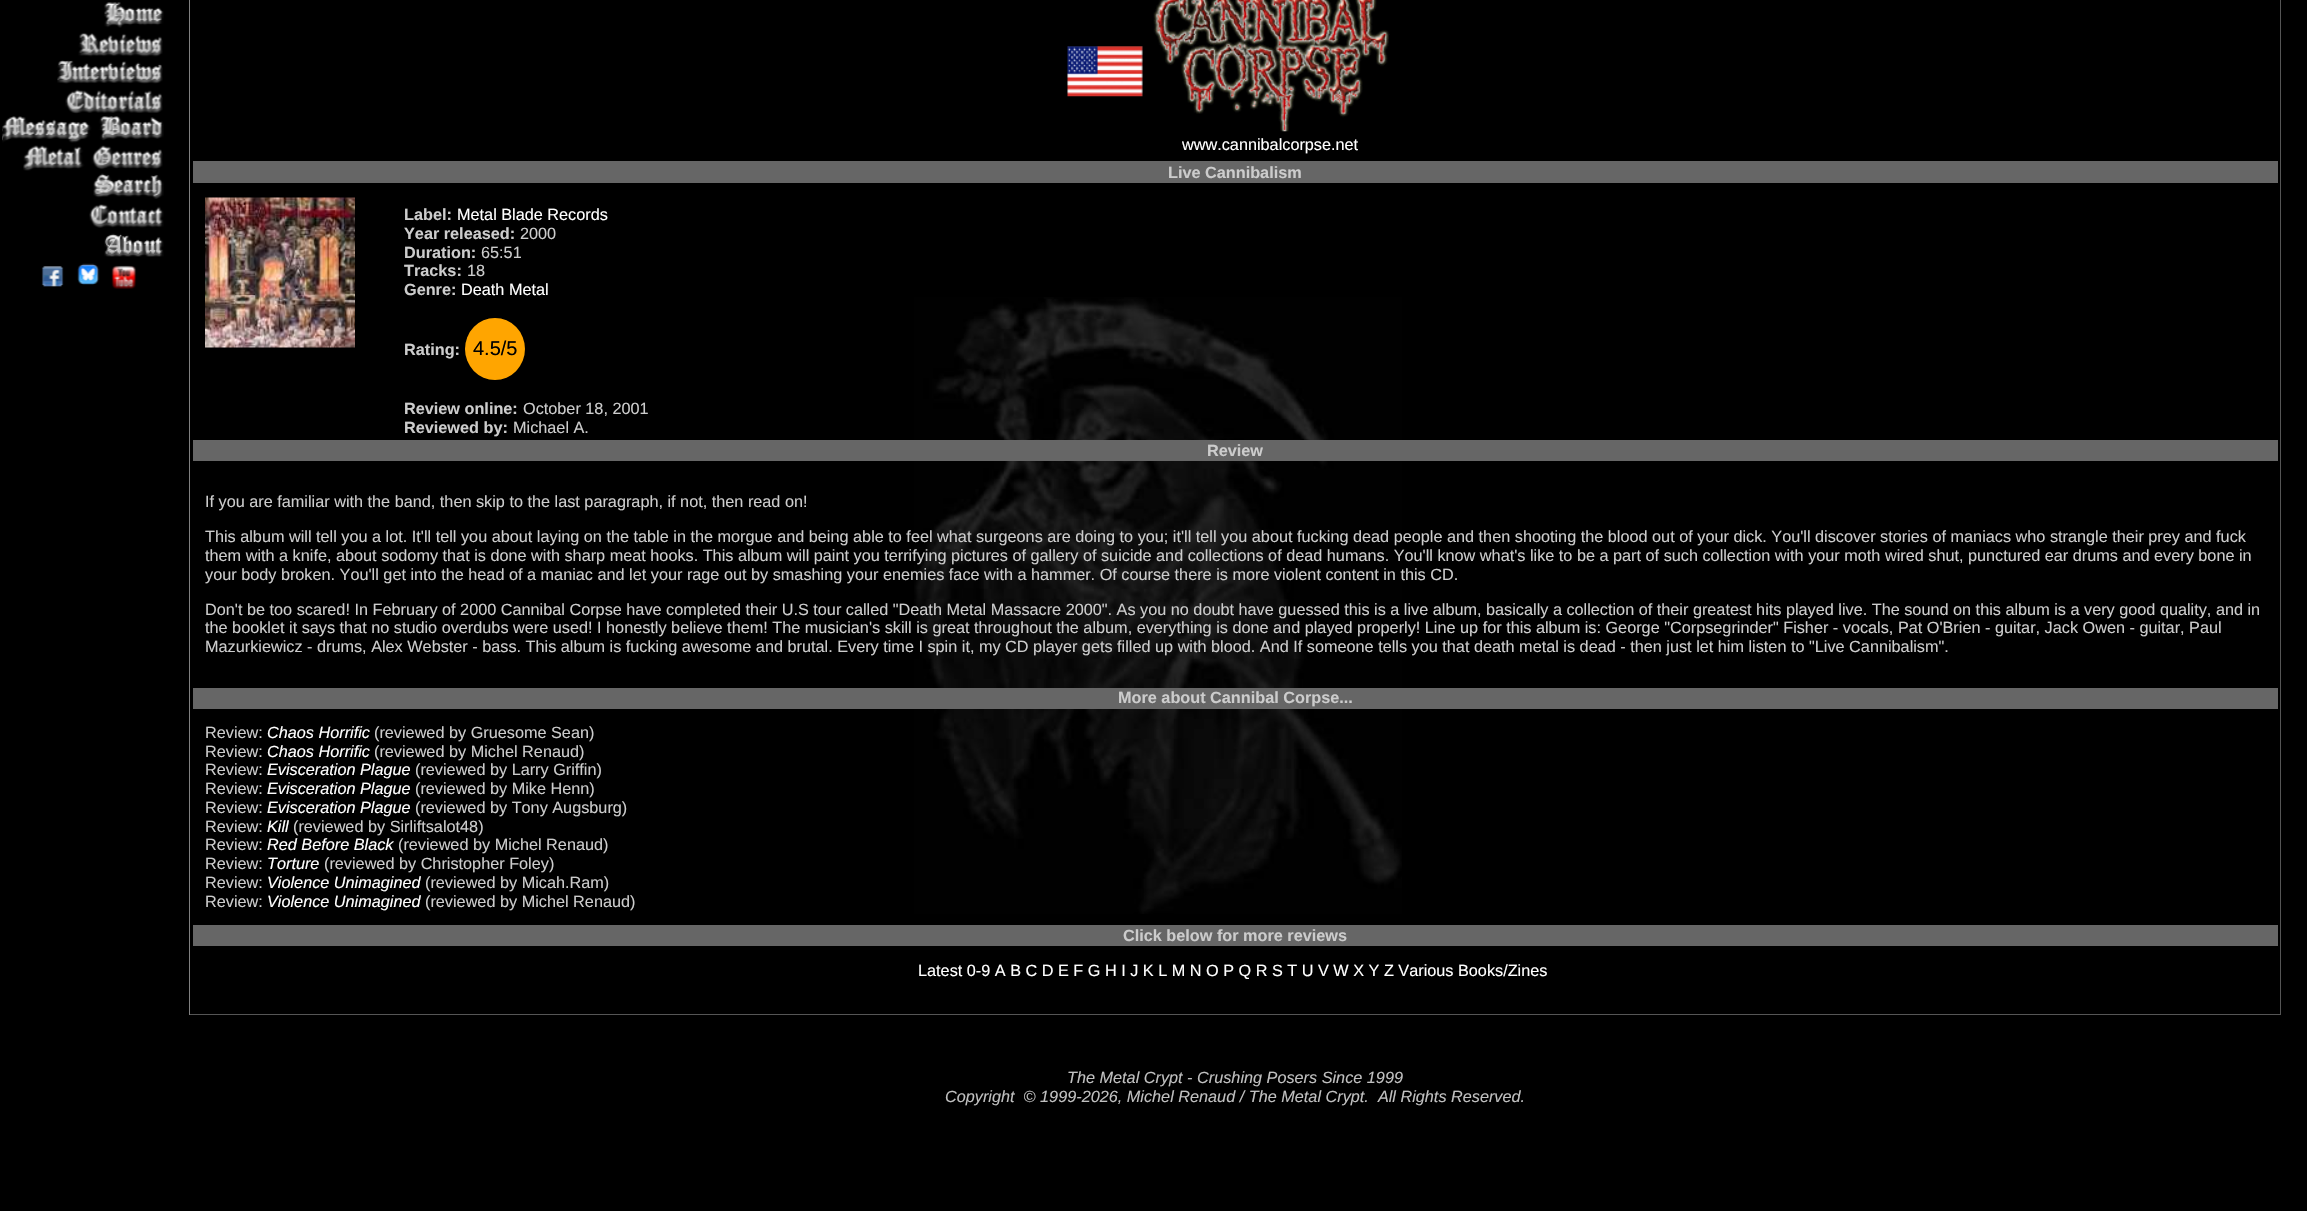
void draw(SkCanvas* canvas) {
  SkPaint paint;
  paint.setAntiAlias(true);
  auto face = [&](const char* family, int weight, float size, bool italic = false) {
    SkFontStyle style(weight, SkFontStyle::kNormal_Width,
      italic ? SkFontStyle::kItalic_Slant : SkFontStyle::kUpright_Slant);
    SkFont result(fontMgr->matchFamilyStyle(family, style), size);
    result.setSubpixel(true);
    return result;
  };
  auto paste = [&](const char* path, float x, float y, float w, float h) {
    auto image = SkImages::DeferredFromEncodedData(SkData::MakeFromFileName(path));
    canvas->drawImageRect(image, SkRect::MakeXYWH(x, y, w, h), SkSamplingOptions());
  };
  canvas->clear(0xff000000);
  paste("img/1.png", 914, 297, 488, 617);
  paste("img/2.png", 104, 2, 59, 1);
  paste("img/3.png", 104, 3, 60, 25);
  paste("img/4.png", 78, 31, 85, 26);
  paste("img/5.png", 57, 60, 105, 1);
  paste("img/6.png", 57, 61, 106, 23);
  paste("img/7.png", 65, 88, 98, 26);
  paste("img/8.png", 2, 118, 1, 24);
  paste("img/9.png", 2, 116, 162, 27);
  paste("img/10.png", 23, 145, 140, 26);
  paste("img/11.png", 93, 173, 71, 26);
  paste("img/12.png", 89, 204, 75, 24);
  paste("img/13.png", 104, 233, 60, 24);
  paste("img/14.png", 41, 266, 23, 21);
  paste("img/15.png", 77, 263, 23, 22);
  paste("img/16.png", 111, 265, 26, 24);
  {
    const struct { float x, y, w, h; SkColor color; } items[] = {
      {2280, 0, 1, 1015, 0xff555555},
      {189, 1014, 2092, 1, 0xff555555},
      {189, 0, 1, 1015, 0xff808080},
    };
    for (auto [x, y, w, h, color] : items) {
      paint.setColor(color);
      canvas->drawRect(SkRect::MakeXYWH(x, y, w, h), paint);
    }
  }
  paste("img/17.png", 1067, 46, 76, 51);
  paste("img/18.png", 1153, 0, 237, 132);
  paint.setColor(0xff666666);
  canvas->drawRect(SkRect::MakeXYWH(193, 161, 2085, 22), paint);
  paste("img/19.png", 205, 197, 150, 151);
  paint.setColor(0xffffa500);
  canvas->drawOval(SkRect::MakeXYWH(465, 318, 60, 62), paint);
  {
    const struct { float x, y, w, h; SkColor color; } items[] = {
      {193, 440, 2085, 21, 0xff666666},
      {193, 688, 2085, 21, 0xff666666},
      {193, 925, 2085, 21, 0xff666666},
    };
    for (auto [x, y, w, h, color] : items) {
      paint.setColor(color);
      canvas->drawRect(SkRect::MakeXYWH(x, y, w, h), paint);
    }
  }
  auto f0 = face("Liberation Sans", 400, 16.25f);
  paint.setColor(0xffffffff);
  canvas->drawString("www.cannibalcorpse.net", 1182, 150, f0, paint);
  auto f1 = face("Liberation Sans", 700, 16.25f);
  paint.setColor(0xffcccccc);
  canvas->drawString("Live Cannibalism", 1168, 178, f1, paint);
  canvas->drawString("Label:", 404, 220, f1, paint);
  paint.setColor(0xffffffff);
  canvas->drawString("Metal Blade Records", 457, 220, f0, paint);
  paint.setColor(0xffcccccc);
  canvas->drawString("Year released:", 404, 239, f1, paint);
  canvas->drawString("2000", 520, 239, f0, paint);
  canvas->drawString("Duration:", 404, 258, f1, paint);
  canvas->drawString("65:51", 481, 258, f0, paint);
  canvas->drawString("Tracks:", 404, 276, f1, paint);
  canvas->drawString("18", 467, 276, f0, paint);
  canvas->drawString("Genre:", 404, 295, f1, paint);
  paint.setColor(0xffffffff);
  canvas->drawString("Death Metal", 461, 295, f0, paint);
  paint.setColor(0xffcccccc);
  canvas->drawString("Rating:", 404, 355, f1, paint);
  auto f2 = face("Liberation Sans", 400, 20);
  paint.setColor(0xff000000);
  canvas->drawString("4.5/5", 473, 355, f2, paint);
  paint.setColor(0xffcccccc);
  canvas->drawString("Review online:", 404, 414, f1, paint);
  canvas->drawString("October 18, 2001", 523, 414, f0, paint);
  canvas->drawString("Reviewed by:", 404, 433, f1, paint);
  canvas->drawString("Michael A.", 513, 433, f0, paint);
  canvas->drawString("Review", 1207, 456, f1, paint);
  {
    const struct { const char* s; float x, y; } items[] = {
      {"If you are familiar with the band, then skip to the last paragraph, if not, then read on!", 205, 507},
      {"This album will tell you a lot. It'll tell you about laying on the table in the morgue and being able to feel what surgeons are doing to you; it'll tell you about fucking dead people and then shooting the blood out of your dick. You'll discover stories of maniacs who strangle their prey and fuck", 205, 542},
      {"them with a knife, about sodomy that is done with sharp meat hooks. This album will paint you terrifying pictures of gallery of suicide and collections of dead humans. You'll know what's like to be a part of such collection with your moth wired shut, punctured ear drums and every bone in", 205, 561},
      {"your body broken. You'll get into the head of a maniac and let your rage out by smashing your enemies face with a hammer. Of course there is more violent content in this CD.", 205, 580},
      {"Don't be too scared! In February of 2000 Cannibal Corpse have completed their U.S tour called \"Death Metal Massacre 2000\". As you no doubt have guessed this is a live album, basically a collection of their greatest hits played live. The sound on this album is a very good quality, and in", 205, 615},
      {"the booklet it says that no studio overdubs were used! I honestly believe them! The musician's skill is great throughout the album, everything is done and played properly! Line up for this album is: George \"Corpsegrinder\" Fisher - vocals, Pat O'Brien - guitar, Jack Owen - guitar, Paul", 205, 633},
      {"Mazurkiewicz - drums, Alex Webster - bass. This album is fucking awesome and brutal. Every time I spin it, my CD player gets filled up with blood. And If someone tells you that death metal is dead - then just let him listen to \"Live Cannibalism\".", 205, 652},
    };
    for (auto [s, x, y] : items) {
      canvas->drawString(s, x, y, f0, paint);
    }
  }
  canvas->drawString("More about Cannibal Corpse...", 1118, 703, f1, paint);
  canvas->drawString("Review:", 205, 738, f0, paint);
  auto f3 = face("Liberation Sans", 400, 16.25f, true);
  paint.setColor(0xffffffff);
  canvas->drawString("Chaos Horrific", 267, 738, f3, paint);
  paint.setColor(0xffcccccc);
  canvas->drawString("(reviewed by Gruesome Sean)", 374, 738, f0, paint);
  canvas->drawString("Review:", 205, 757, f0, paint);
  paint.setColor(0xffffffff);
  canvas->drawString("Chaos Horrific", 267, 757, f3, paint);
  paint.setColor(0xffcccccc);
  canvas->drawString("(reviewed by Michel Renaud)", 374, 757, f0, paint);
  canvas->drawString("Review:", 205, 775, f0, paint);
  paint.setColor(0xffffffff);
  canvas->drawString("Evisceration Plague", 267, 775, f3, paint);
  paint.setColor(0xffcccccc);
  canvas->drawString("(reviewed by Larry Griffin)", 415, 775, f0, paint);
  canvas->drawString("Review:", 205, 794, f0, paint);
  paint.setColor(0xffffffff);
  canvas->drawString("Evisceration Plague", 267, 794, f3, paint);
  paint.setColor(0xffcccccc);
  canvas->drawString("(reviewed by Mike Henn)", 415, 794, f0, paint);
  canvas->drawString("Review:", 205, 813, f0, paint);
  paint.setColor(0xffffffff);
  canvas->drawString("Evisceration Plague", 267, 813, f3, paint);
  paint.setColor(0xffcccccc);
  canvas->drawString("(reviewed by Tony Augsburg)", 415, 813, f0, paint);
  canvas->drawString("Review:", 205, 832, f0, paint);
  paint.setColor(0xffffffff);
  canvas->drawString("Kill", 267, 832, f3, paint);
  paint.setColor(0xffcccccc);
  canvas->drawString("(reviewed by Sirliftsalot48)", 293, 832, f0, paint);
  canvas->drawString("Review:", 205, 850, f0, paint);
  paint.setColor(0xffffffff);
  canvas->drawString("Red Before Black", 267, 850, f3, paint);
  paint.setColor(0xffcccccc);
  canvas->drawString("(reviewed by Michel Renaud)", 398, 850, f0, paint);
  canvas->drawString("Review:", 205, 869, f0, paint);
  paint.setColor(0xffffffff);
  canvas->drawString("Torture", 267, 869, f3, paint);
  paint.setColor(0xffcccccc);
  canvas->drawString("(reviewed by Christopher Foley)", 324, 869, f0, paint);
  canvas->drawString("Review:", 205, 888, f0, paint);
  paint.setColor(0xffffffff);
  canvas->drawString("Violence Unimagined", 267, 888, f3, paint);
  paint.setColor(0xffcccccc);
  canvas->drawString("(reviewed by Micah.Ram)", 425, 888, f0, paint);
  canvas->drawString("Review:", 205, 907, f0, paint);
  paint.setColor(0xffffffff);
  canvas->drawString("Violence Unimagined", 267, 907, f3, paint);
  paint.setColor(0xffcccccc);
  canvas->drawString("(reviewed by Michel Renaud)", 425, 907, f0, paint);
  canvas->drawString("Click below for more reviews", 1123, 941, f1, paint);
  paint.setColor(0xffffffff);
  canvas->drawString("Latest 0-9 A B C D E F G H I J K L M N O P Q R S T U V W X Y Z Various Books/Zines", 918, 976, f0, paint);
  paint.setColor(0xffc0c0c0);
  canvas->drawString("The Metal Crypt - Crushing Posers Since 1999", 1067, 1083, f3, paint);
  canvas->drawString("Copyright  © 1999-2026, Michel Renaud / The Metal Crypt.  All Rights Reserved.", 945, 1102, f3, paint);
}
